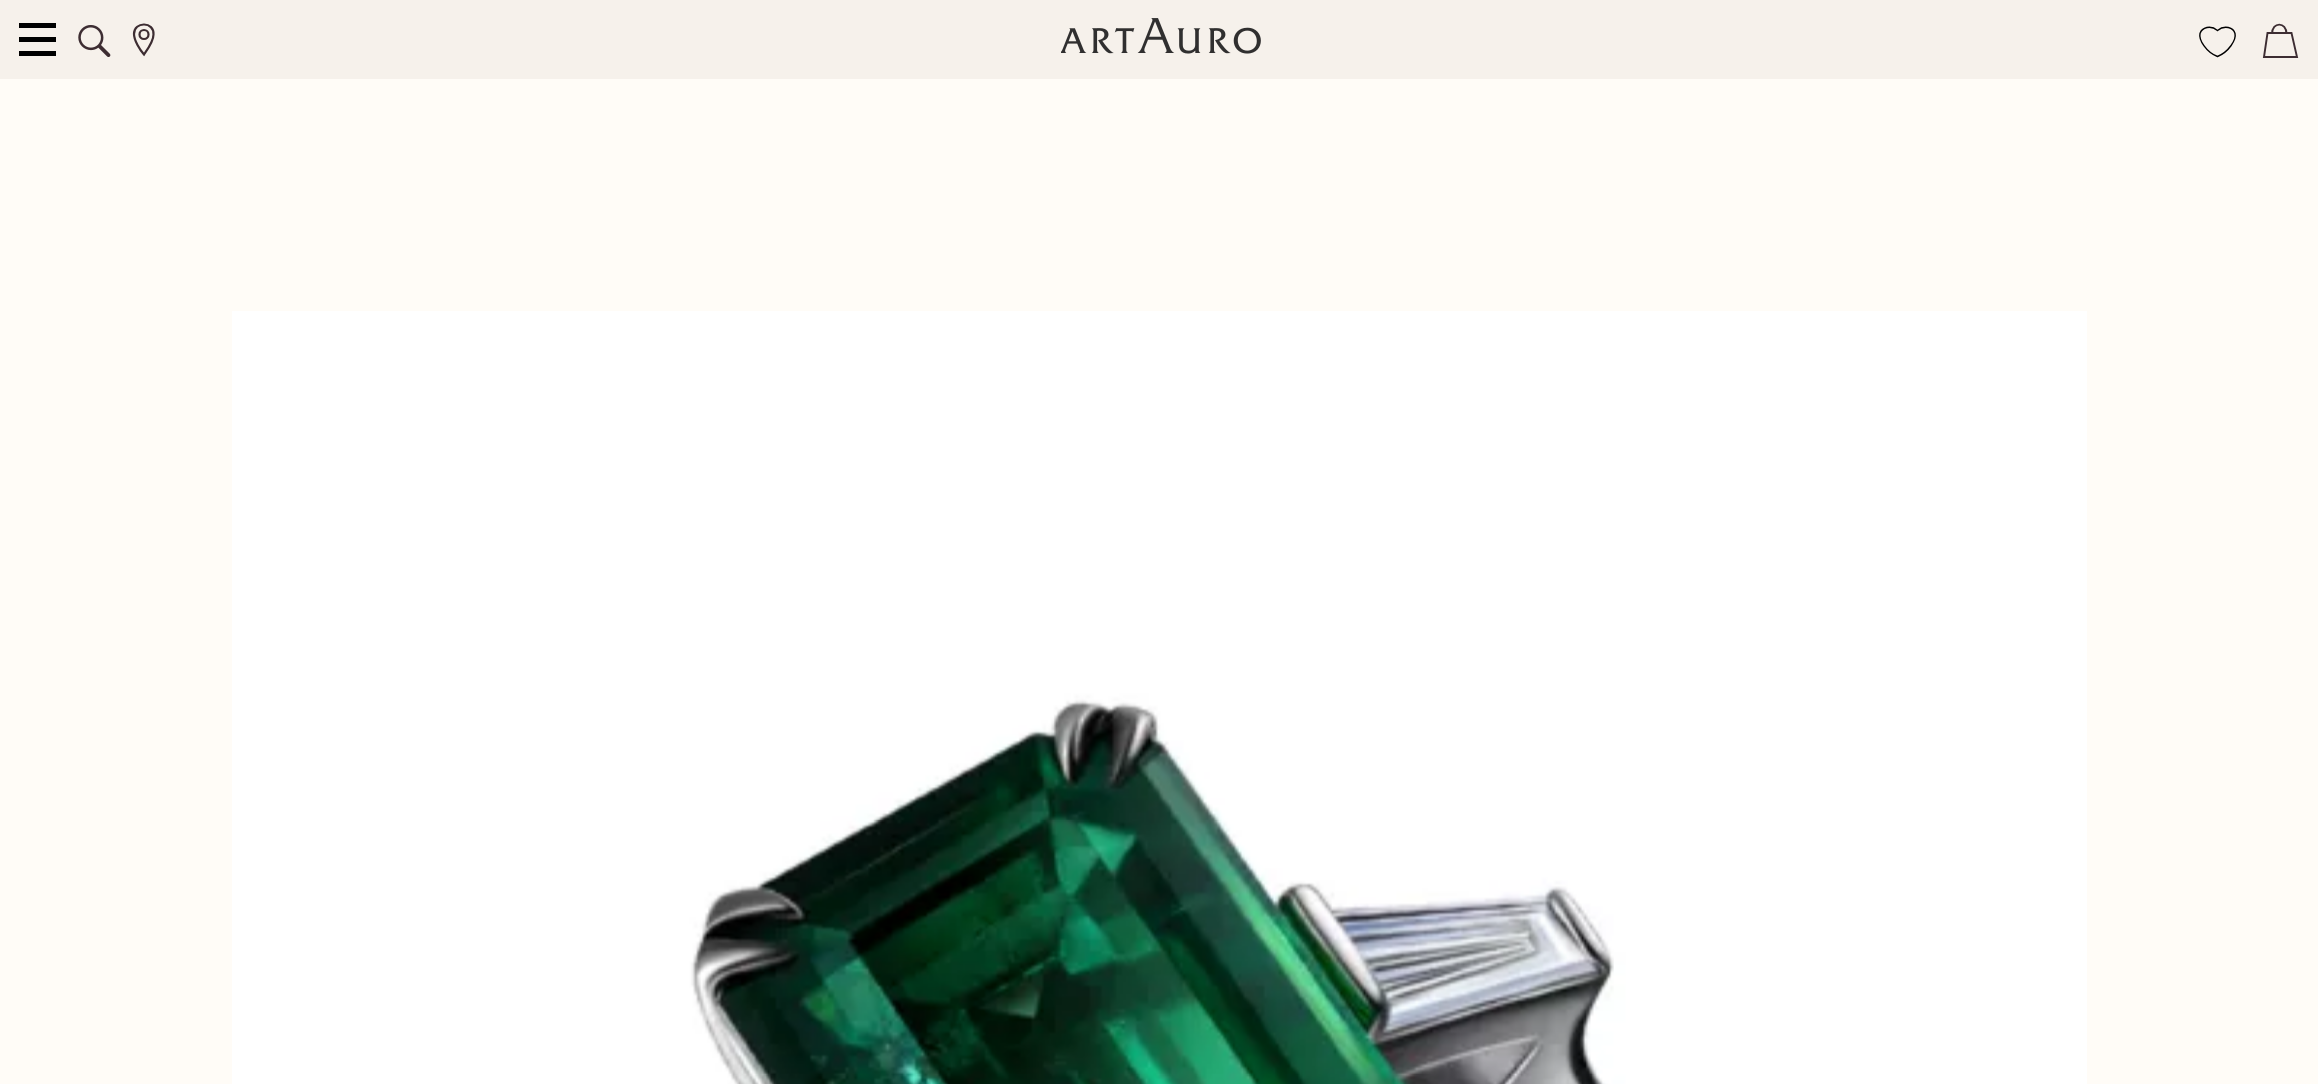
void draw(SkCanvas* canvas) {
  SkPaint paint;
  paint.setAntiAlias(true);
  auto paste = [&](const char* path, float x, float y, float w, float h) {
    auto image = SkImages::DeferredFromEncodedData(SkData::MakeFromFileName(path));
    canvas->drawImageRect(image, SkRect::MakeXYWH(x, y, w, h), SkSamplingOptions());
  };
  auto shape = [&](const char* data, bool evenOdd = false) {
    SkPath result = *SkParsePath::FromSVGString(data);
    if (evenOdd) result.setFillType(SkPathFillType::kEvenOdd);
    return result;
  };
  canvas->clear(0xfff6f1eb);
  {
    const struct { float x, y, w, h; SkColor color; } items[] = {
      {19, 37, 37, 5, 0xff000000},
      {19, 23, 37, 5, 0xff000000},
      {19, 51, 37, 5, 0xff000000},
    };
    for (auto [x, y, w, h, color] : items) {
      paint.setColor(color);
      canvas->drawRect(SkRect::MakeXYWH(x, y, w, h), paint);
    }
  }
  paste("img/1.png", 78, 25, 33, 32);
  paint.setStroke(true);
  paint.setStrokeWidth(2.2f);
  paint.setColor(0xff3d2d32);
  canvas->drawCircle(144, 34.5f, 4.5f, paint);
  canvas->drawPath(shape("M134 34C134 21 154.5 21.5 153.5 34.5C153.5 41.5 147.5 49.5 144 54.5C140 50 134 40.5 134 34Z"), paint);
  paste("img/2.png", 1061, 18, 200, 36);
  paint.setStrokeWidth(1.4f);
  paint.setColor(0xff000000);
  canvas->drawPath(shape("M2200 33.5C2198.5 40 2206.5 52.5 2217.5 56.5C2228.5 52 2236.5 40 2235 33.5C2233.5 27.5 2224.5 24.5 2217.5 30.5C2210.5 24.5 2202 27.5 2200 33.5Z"), paint);
  paint.setStrokeWidth(1.9f);
  paint.setColor(0xff3d2d32);
  canvas->drawPath(shape("M2264 57L2267.5 33H2291.5L2297 57ZM2286.5 34C2286.5 21.5 2272 21.5 2272 34"), paint);
  paint.setStroke(false);
  paint.setColor(0xfffffcf7);
  canvas->drawRect(SkRect::MakeXYWH(0, 79, 2318, 1005), paint);
  paste("img/3.png", 232, 311, 1855, 773);
}
